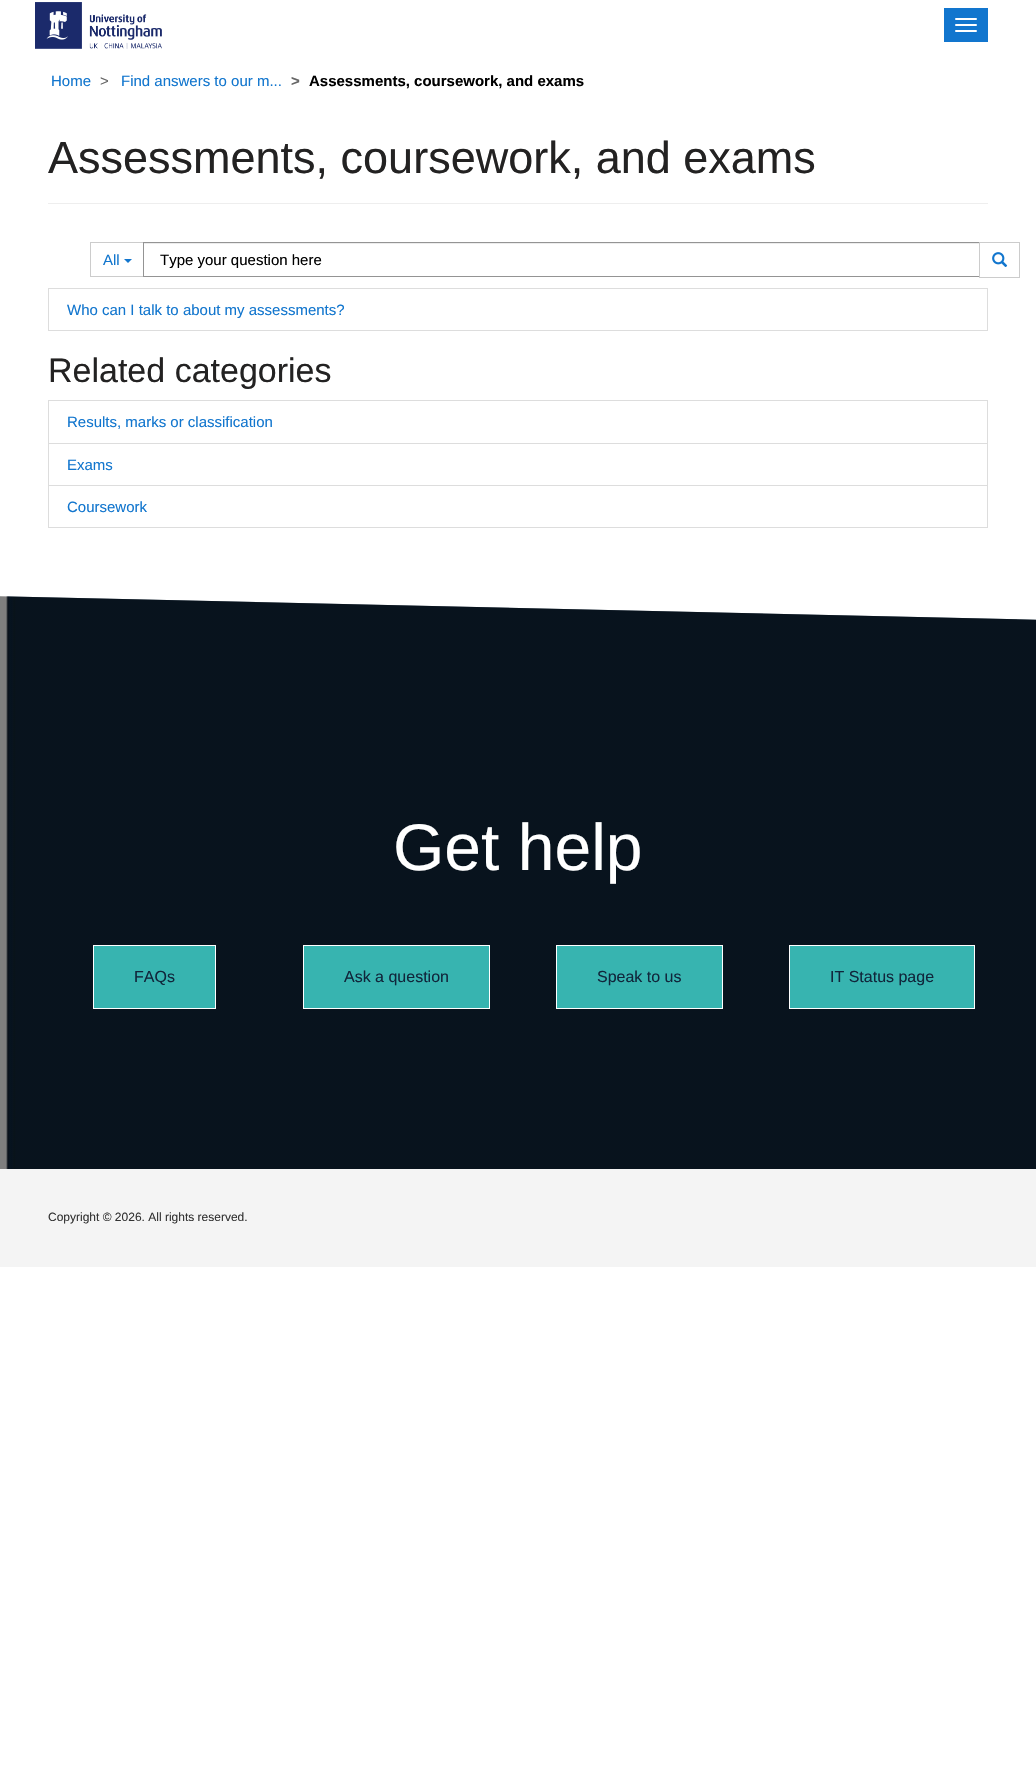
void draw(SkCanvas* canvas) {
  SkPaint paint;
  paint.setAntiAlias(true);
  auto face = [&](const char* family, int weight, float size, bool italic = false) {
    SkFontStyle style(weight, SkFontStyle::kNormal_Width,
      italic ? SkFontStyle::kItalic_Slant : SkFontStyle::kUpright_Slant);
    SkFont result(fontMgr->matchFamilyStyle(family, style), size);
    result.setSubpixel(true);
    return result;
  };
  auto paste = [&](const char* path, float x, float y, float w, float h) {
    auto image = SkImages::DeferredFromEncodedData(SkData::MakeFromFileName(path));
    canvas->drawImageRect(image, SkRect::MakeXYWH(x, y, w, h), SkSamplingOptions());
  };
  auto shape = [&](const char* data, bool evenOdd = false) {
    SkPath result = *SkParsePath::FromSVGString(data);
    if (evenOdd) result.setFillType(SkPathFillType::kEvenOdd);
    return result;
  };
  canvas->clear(0xffffffff);
  paste("img/1.png", 35, 2, 127, 47);
  paint.setColor(0xff1276ce);
  canvas->drawRect(SkRect::MakeXYWH(944, 8, 44, 34), paint);
  paint.setColor(0xffffffff);
  canvas->drawRoundRect(SkRect::MakeXYWH(955, 18, 22, 2), 1, 1, paint);
  canvas->drawRoundRect(SkRect::MakeXYWH(955, 24, 22, 2), 1, 1, paint);
  canvas->drawRoundRect(SkRect::MakeXYWH(955, 30, 22, 2), 1, 1, paint);
  paint.setColor(0xffeeeeee);
  canvas->drawRect(SkRect::MakeXYWH(48, 203, 940, 1), paint);
  paint.setStroke(true);
  paint.setStrokeWidth(1);
  paint.setColor(0xffcccccc);
  canvas->drawRect(SkRect::MakeXYWH(90.5f, 242.5f, 54, 34), paint);
  paint.setStroke(false);
  paint.setColor(0xff1276ce);
  canvas->drawPath(shape("M124 259H132L128 263Z"), paint);
  paint.setColor(0xffffffff);
  canvas->drawRect(SkRect::MakeXYWH(144, 244, 1, 32), paint);
  paint.setColor(0xffececec);
  canvas->drawRect(SkRect::MakeXYWH(144, 243, 843, 1), paint);
  paint.setStroke(true);
  paint.setColor(0xff949494);
  canvas->drawRect(SkRect::MakeXYWH(143.5f, 242.5f, 844, 34), paint);
  paint.setStroke(false);
  paint.setColor(0xffffffff);
  canvas->drawRect(SkRect::MakeXYWH(980, 243, 8, 34), paint);
  paint.setStroke(true);
  paint.setColor(0xffcccccc);
  canvas->drawRect(SkRect::MakeXYWH(979.5f, 242.5f, 40, 35), paint);
  paste("img/2.png", 992, 252, 16, 15);
  paint.setColor(0xffdddddd);
  canvas->drawRect(SkRect::MakeXYWH(48.5f, 288.5f, 939, 42), paint);
  canvas->drawRect(SkRect::MakeXYWH(48.5f, 400.5f, 939, 43), paint);
  canvas->drawRect(SkRect::MakeXYWH(48.5f, 443.5f, 939, 42), paint);
  canvas->drawRect(SkRect::MakeXYWH(48.5f, 485.5f, 939, 42), paint);
  paste("img/3.png", 0, 596, 1036, 573);
  paint.setStroke(false);
  paint.setColor(0xff37b4b0);
  canvas->drawRect(SkRect::MakeXYWH(93.5f, 945.5f, 122, 63), paint);
  paint.setStroke(true);
  paint.setColor(0xffffffff);
  canvas->drawRect(SkRect::MakeXYWH(93.5f, 945.5f, 122, 63), paint);
  paint.setStroke(false);
  paint.setColor(0xff37b4b0);
  canvas->drawRect(SkRect::MakeXYWH(303.5f, 945.5f, 186, 63), paint);
  paint.setStroke(true);
  paint.setColor(0xffffffff);
  canvas->drawRect(SkRect::MakeXYWH(303.5f, 945.5f, 186, 63), paint);
  paint.setStroke(false);
  paint.setColor(0xff37b4b0);
  canvas->drawRect(SkRect::MakeXYWH(556.5f, 945.5f, 166, 63), paint);
  paint.setStroke(true);
  paint.setColor(0xffffffff);
  canvas->drawRect(SkRect::MakeXYWH(556.5f, 945.5f, 166, 63), paint);
  paint.setStroke(false);
  paint.setColor(0xff37b4b0);
  canvas->drawRect(SkRect::MakeXYWH(789.5f, 945.5f, 185, 63), paint);
  paint.setStroke(true);
  paint.setColor(0xffffffff);
  canvas->drawRect(SkRect::MakeXYWH(789.5f, 945.5f, 185, 63), paint);
  paint.setStroke(false);
  paint.setColor(0xfff4f4f4);
  canvas->drawRect(SkRect::MakeXYWH(0, 1169, 1036, 98), paint);
  auto f0 = face("Liberation Sans", 400, 15);
  paint.setColor(0xff1276ce);
  canvas->drawString("Home", 51, 86, f0, paint);
  paint.setColor(0xff666666);
  canvas->drawString(">", 100, 86, f0, paint);
  paint.setColor(0xff1276ce);
  canvas->drawString("Find answers to our m...", 121, 86, f0, paint);
  auto f1 = face("Liberation Sans", 700, 15);
  paint.setColor(0xff666666);
  canvas->drawString(">", 291, 86, f1, paint);
  paint.setColor(0xff000000);
  canvas->drawString("Assessments, coursework, and exams", 309, 86, f1, paint);
  auto f2 = face("Liberation Sans", 400, 45);
  paint.setColor(0xff232222);
  canvas->drawString("Assessments, coursework, and exams", 48, 173, f2, paint);
  paint.setColor(0xff1276ce);
  canvas->drawString("All", 103, 265, f0, paint);
  canvas->save();
  canvas->clipRect(SkRect::MakeXYWH(156, 251, 801, 17));
  paint.setColor(0xff000000);
  canvas->drawString("Type your question here", 160, 265, f0, paint);
  canvas->restore();
  paint.setColor(0xff1276ce);
  canvas->drawString("Who can I talk to about my assessments?", 67, 315, f0, paint);
  auto f3 = face("Liberation Sans", 400, 34);
  paint.setColor(0xff232222);
  canvas->drawString("Related categories", 48, 382, f3, paint);
  paint.setColor(0xff1276ce);
  {
    const struct { const char* s; float x, y; } items[] = {
      {"Results, marks or classification", 67, 427},
      {"Exams", 67, 470},
      {"Coursework", 67, 512},
    };
    for (auto [s, x, y] : items) {
      canvas->drawString(s, x, y, f0, paint);
    }
  }
  auto f4 = face("Liberation Sans", 400, 66);
  paint.setColor(0xffffffff);
  canvas->drawString("Get help", 393, 870, f4, paint);
  auto f5 = face("Liberation Sans", 400, 16);
  paint.setColor(0xff10263b);
  {
    const struct { const char* s; float x, y; } items[] = {
      {"FAQs", 134, 982},
      {"Ask a question", 344, 982},
      {"Speak to us", 597, 982},
      {"IT Status page", 830, 982},
    };
    for (auto [s, x, y] : items) {
      canvas->drawString(s, x, y, f5, paint);
    }
  }
  auto f6 = face("Liberation Sans", 400, 12);
  paint.setColor(0xff333333);
  canvas->drawString("Copyright © 2026. All rights reserved.", 48, 1221, f6, paint);
}
